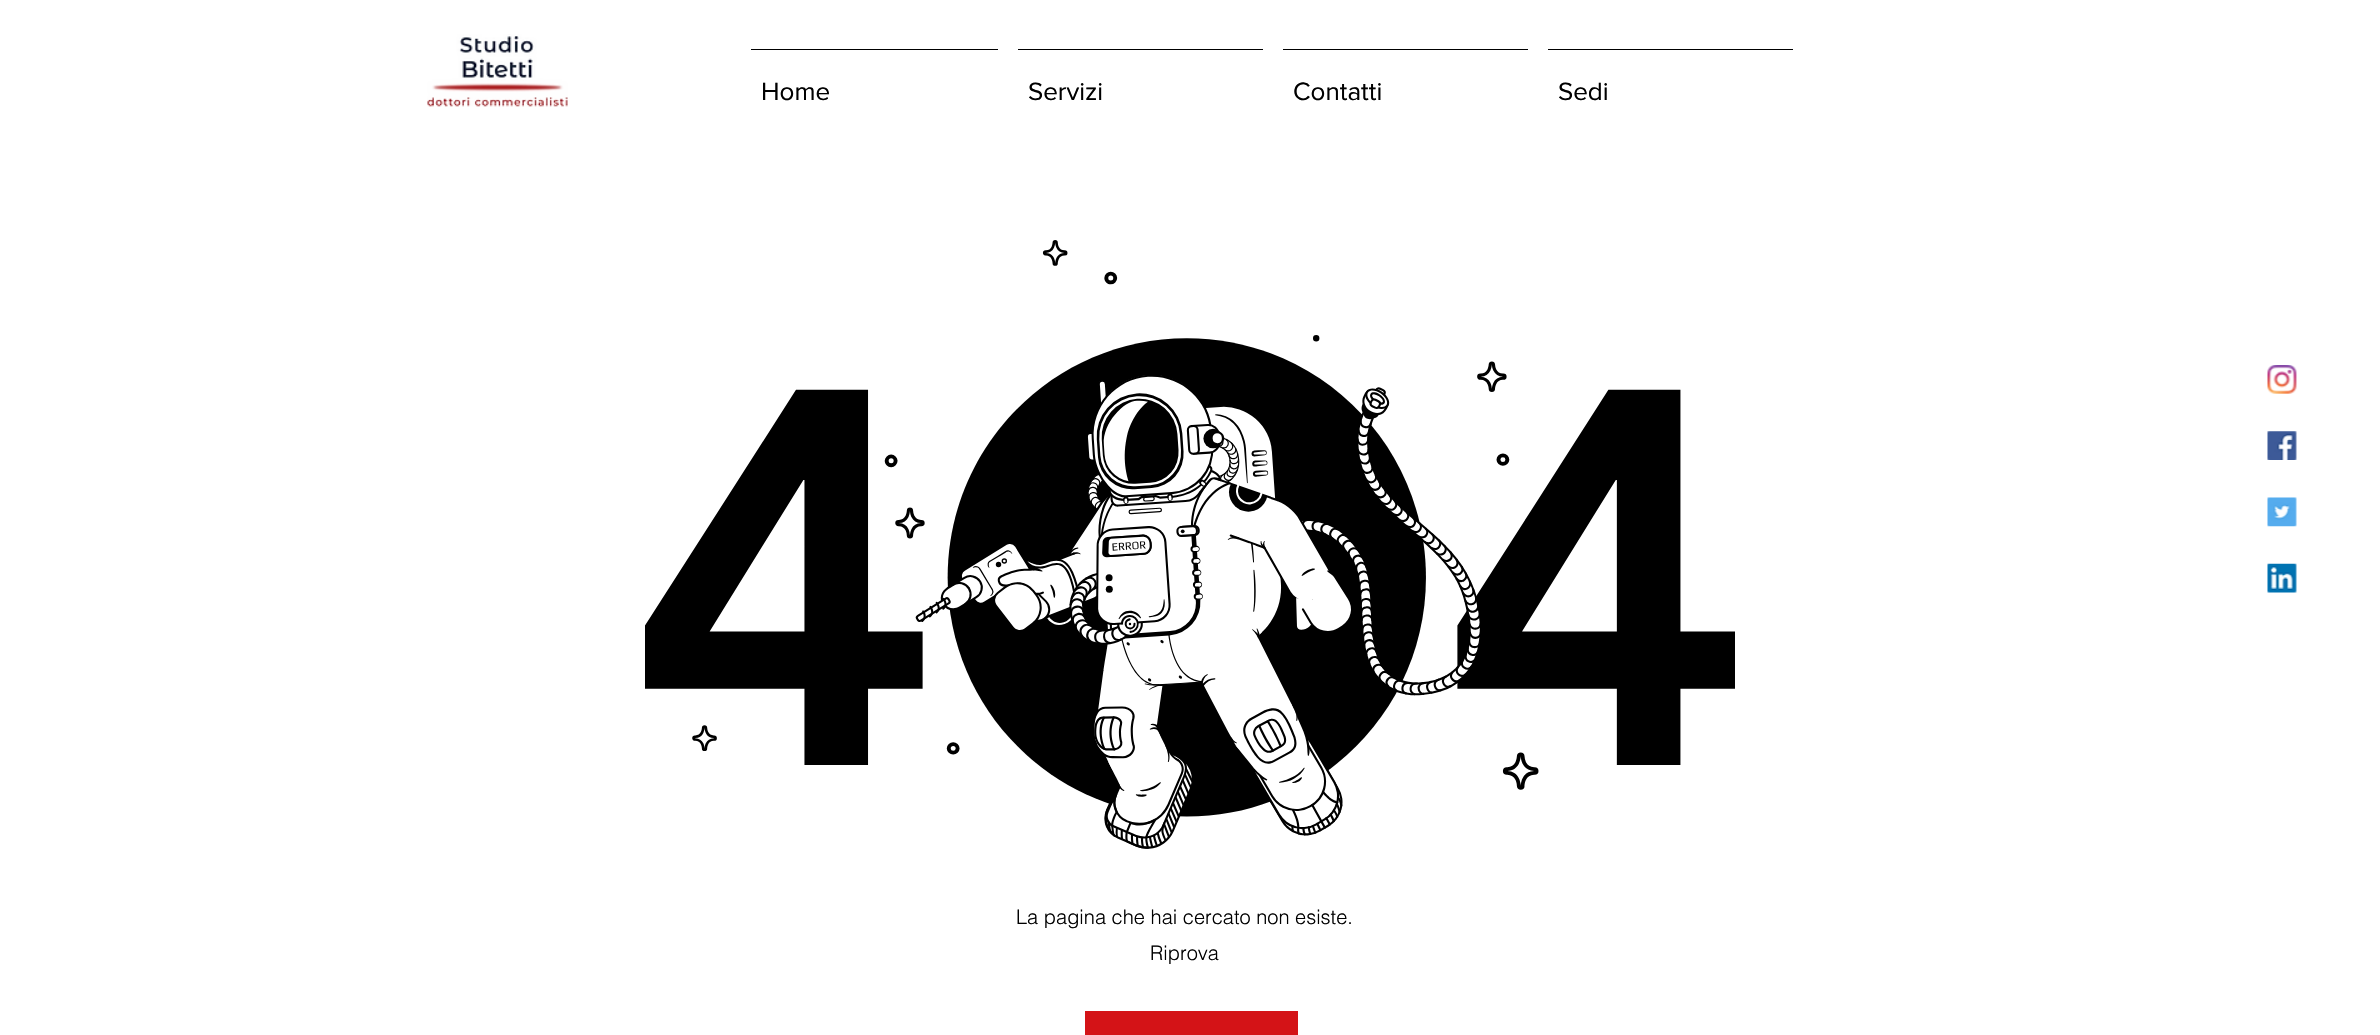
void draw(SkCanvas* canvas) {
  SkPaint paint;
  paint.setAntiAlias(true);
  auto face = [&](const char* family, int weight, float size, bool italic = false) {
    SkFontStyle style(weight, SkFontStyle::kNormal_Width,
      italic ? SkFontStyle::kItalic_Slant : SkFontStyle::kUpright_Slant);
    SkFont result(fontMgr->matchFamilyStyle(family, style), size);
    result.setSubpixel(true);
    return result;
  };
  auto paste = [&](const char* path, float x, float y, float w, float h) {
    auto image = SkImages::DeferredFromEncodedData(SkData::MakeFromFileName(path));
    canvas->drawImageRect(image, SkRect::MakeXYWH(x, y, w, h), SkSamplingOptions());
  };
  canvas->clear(0xffffffff);
  paste("img/1.png", 427, 34, 141, 73);
  {
    const struct { float x, y, w, h; SkColor color; } items[] = {
      {751, 49, 247, 1, 0xff000000},
      {1018, 49, 245, 1, 0xff000000},
      {1283, 49, 245, 1, 0xff000000},
      {1548, 49, 245, 1, 0xff000000},
    };
    for (auto [x, y, w, h, color] : items) {
      paint.setColor(color);
      canvas->drawRect(SkRect::MakeXYWH(x, y, w, h), paint);
    }
  }
  paste("img/2.png", 2267, 365, 30, 29);
  paste("img/3.png", 2267, 431, 30, 29);
  paste("img/4.png", 2267, 497, 30, 30);
  paste("img/5.png", 2267, 563, 30, 30);
  paste("img/6.png", 645, 240, 1090, 609);
  paint.setColor(0xffd41317);
  canvas->drawRect(SkRect::MakeXYWH(1085, 1011, 213, 24), paint);
  auto f0 = face("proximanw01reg", 400, 26);
  paint.setColor(0xff000000);
  {
    const struct { const char* s; float x, y; } items[] = {
      {"Home", 761, 100},
      {"Servizi", 1028, 100},
      {"Contatti", 1293, 100},
      {"Sedi", 1558, 100},
    };
    for (auto [s, x, y] : items) {
      canvas->drawString(s, x, y, f0, paint);
    }
  }
  auto f1 = face("helvetica", 300, 20);
  canvas->drawString("La pagina che hai cercato non esiste.", 1016, 924, f1, paint);
  canvas->drawString("Riprova", 1150, 960, f1, paint);
}
